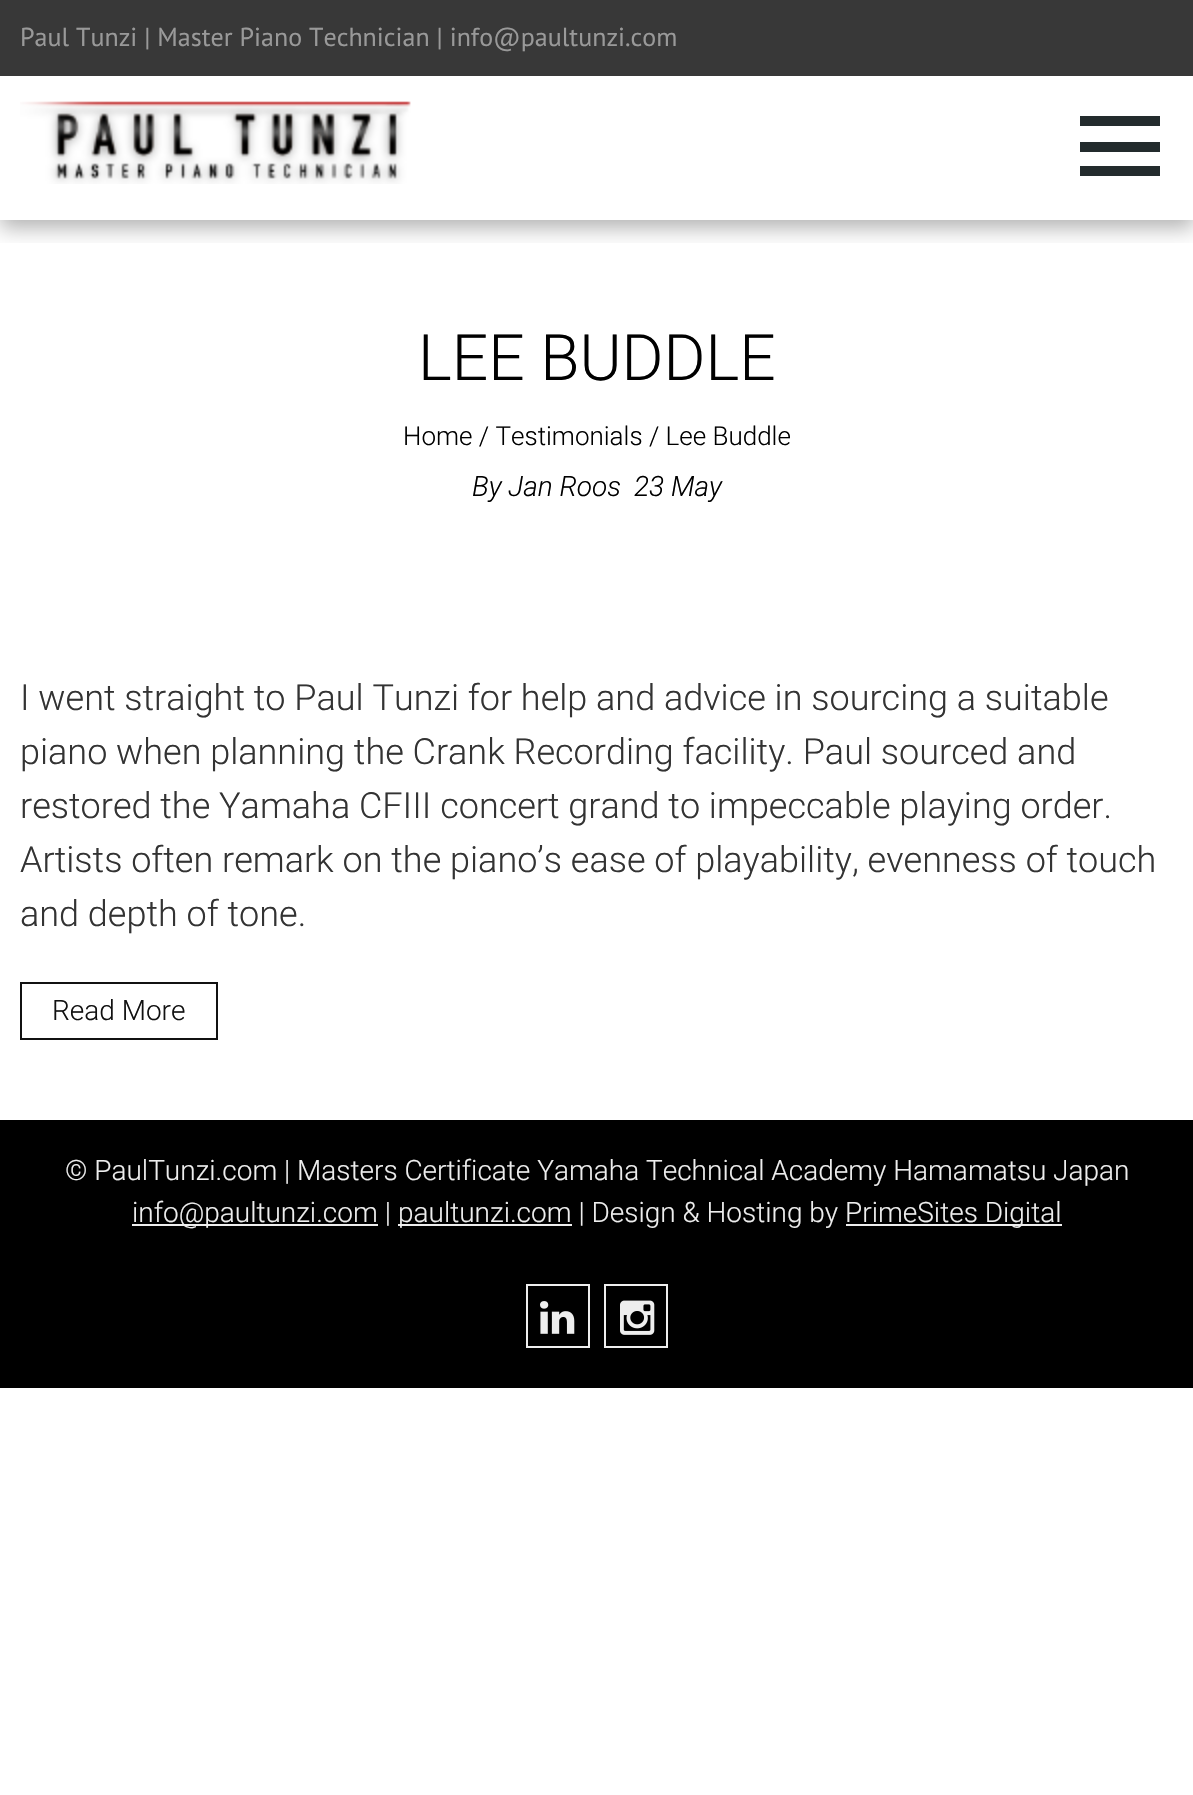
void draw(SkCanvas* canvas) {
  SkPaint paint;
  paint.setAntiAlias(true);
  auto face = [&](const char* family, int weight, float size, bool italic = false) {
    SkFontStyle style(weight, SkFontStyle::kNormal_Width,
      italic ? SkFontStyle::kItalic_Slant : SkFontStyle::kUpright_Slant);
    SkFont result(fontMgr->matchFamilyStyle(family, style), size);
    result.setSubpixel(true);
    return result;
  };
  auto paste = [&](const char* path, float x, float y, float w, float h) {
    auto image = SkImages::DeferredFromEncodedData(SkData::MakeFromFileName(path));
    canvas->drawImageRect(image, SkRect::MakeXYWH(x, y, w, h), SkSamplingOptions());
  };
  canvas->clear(0xffffffff);
  canvas->save();
  canvas->clipRect(SkRect::MakeXYWH(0, 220, 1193, 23));
  paint.setColor(0x4d000000);
  paint.setMaskFilter(SkMaskFilter::MakeBlur(kNormal_SkBlurStyle, 10));
  canvas->drawRect(SkRect::MakeXYWH(0, 84, 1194, 144), paint);
  paint.setMaskFilter(nullptr);
  canvas->restore();
  paint.setColor(0xff383838);
  canvas->drawRect(SkRect::MakeXYWH(0, 0, 1193, 76), paint);
  paste("img/1.png", 20, 101, 391, 83);
  {
    const struct { float x, y, w, h; SkColor color; } items[] = {
      {1080, 116, 80, 10, 0xff232b2d},
      {1080, 142, 80, 10, 0xff232b2d},
      {1080, 166, 80, 10, 0xff232b2d},
    };
    for (auto [x, y, w, h, color] : items) {
      paint.setColor(color);
      canvas->drawRect(SkRect::MakeXYWH(x, y, w, h), paint);
    }
  }
  paint.setStroke(true);
  paint.setStrokeWidth(2);
  paint.setColor(0xff111111);
  canvas->drawRect(SkRect::MakeXYWH(21, 983, 196, 56), paint);
  paint.setStroke(false);
  {
    const struct { float x, y, w, h; SkColor color; } items[] = {
      {0, 1120, 1193, 268, 0xff000000},
      {132, 1224, 246, 2, 0xffeeeeee},
      {398, 1224, 174, 2, 0xffeeeeee},
      {846, 1224, 216, 2, 0xffeeeeee},
    };
    for (auto [x, y, w, h, color] : items) {
      paint.setColor(color);
      canvas->drawRect(SkRect::MakeXYWH(x, y, w, h), paint);
    }
  }
  paint.setStroke(true);
  canvas->drawRect(SkRect::MakeXYWH(527, 1285, 62, 62), paint);
  paste("img/2.png", 540, 1301, 35, 33);
  canvas->drawRect(SkRect::MakeXYWH(605, 1285, 62, 62), paint);
  paste("img/3.png", 620, 1300, 35, 35);
  auto f0 = face("PT Sans", 400, 26);
  paint.setStroke(false);
  paint.setColor(0xff999999);
  canvas->drawString("Paul Tunzi | Master Piano Technician | info@paultunzi.com", 20, 46, f0, paint);
  auto f1 = face("Roboto", 300, 64);
  paint.setColor(0xff000000);
  canvas->drawString("LEE BUDDLE", 418, 380, f1, paint);
  auto f2 = face("Roboto", 300, 26);
  canvas->drawString("Home / Testimonials / Lee Buddle", 403, 445, f2, paint);
  auto f3 = face("Roboto", 300, 28, true);
  canvas->drawString("By Jan Roos", 472, 496, f3, paint);
  canvas->drawString("23 May", 634, 496, f3, paint);
  auto f4 = face("Roboto", 300, 36);
  paint.setColor(0xff333333);
  {
    const struct { const char* s; float x, y; } items[] = {
      {"I went straight to Paul Tunzi for help and advice in sourcing a suitable", 20, 710},
      {"piano when planning the Crank Recording facility. Paul sourced and", 20, 764},
      {"restored the Yamaha CFIII concert grand to impeccable playing order.", 20, 818},
      {"Artists often remark on the piano’s ease of playability, evenness of touch", 20, 872},
      {"and depth of tone.", 20, 926},
    };
    for (auto [s, x, y] : items) {
      canvas->drawString(s, x, y, f4, paint);
    }
  }
  auto f5 = face("Roboto", 300, 28);
  paint.setColor(0xff111111);
  canvas->drawString("Read More", 52, 1020, f5, paint);
  paint.setColor(0xffeeeeee);
  {
    const struct { const char* s; float x, y; } items[] = {
      {"© PaulTunzi.com | Masters Certificate Yamaha Technical Academy Hamamatsu Japan", 65, 1180},
      {"info@paultunzi.com |", 132, 1222},
      {"paultunzi.com | Design & Hosting by", 398, 1222},
      {"PrimeSites Digital", 845, 1222},
    };
    for (auto [s, x, y] : items) {
      canvas->drawString(s, x, y, f5, paint);
    }
  }
}
